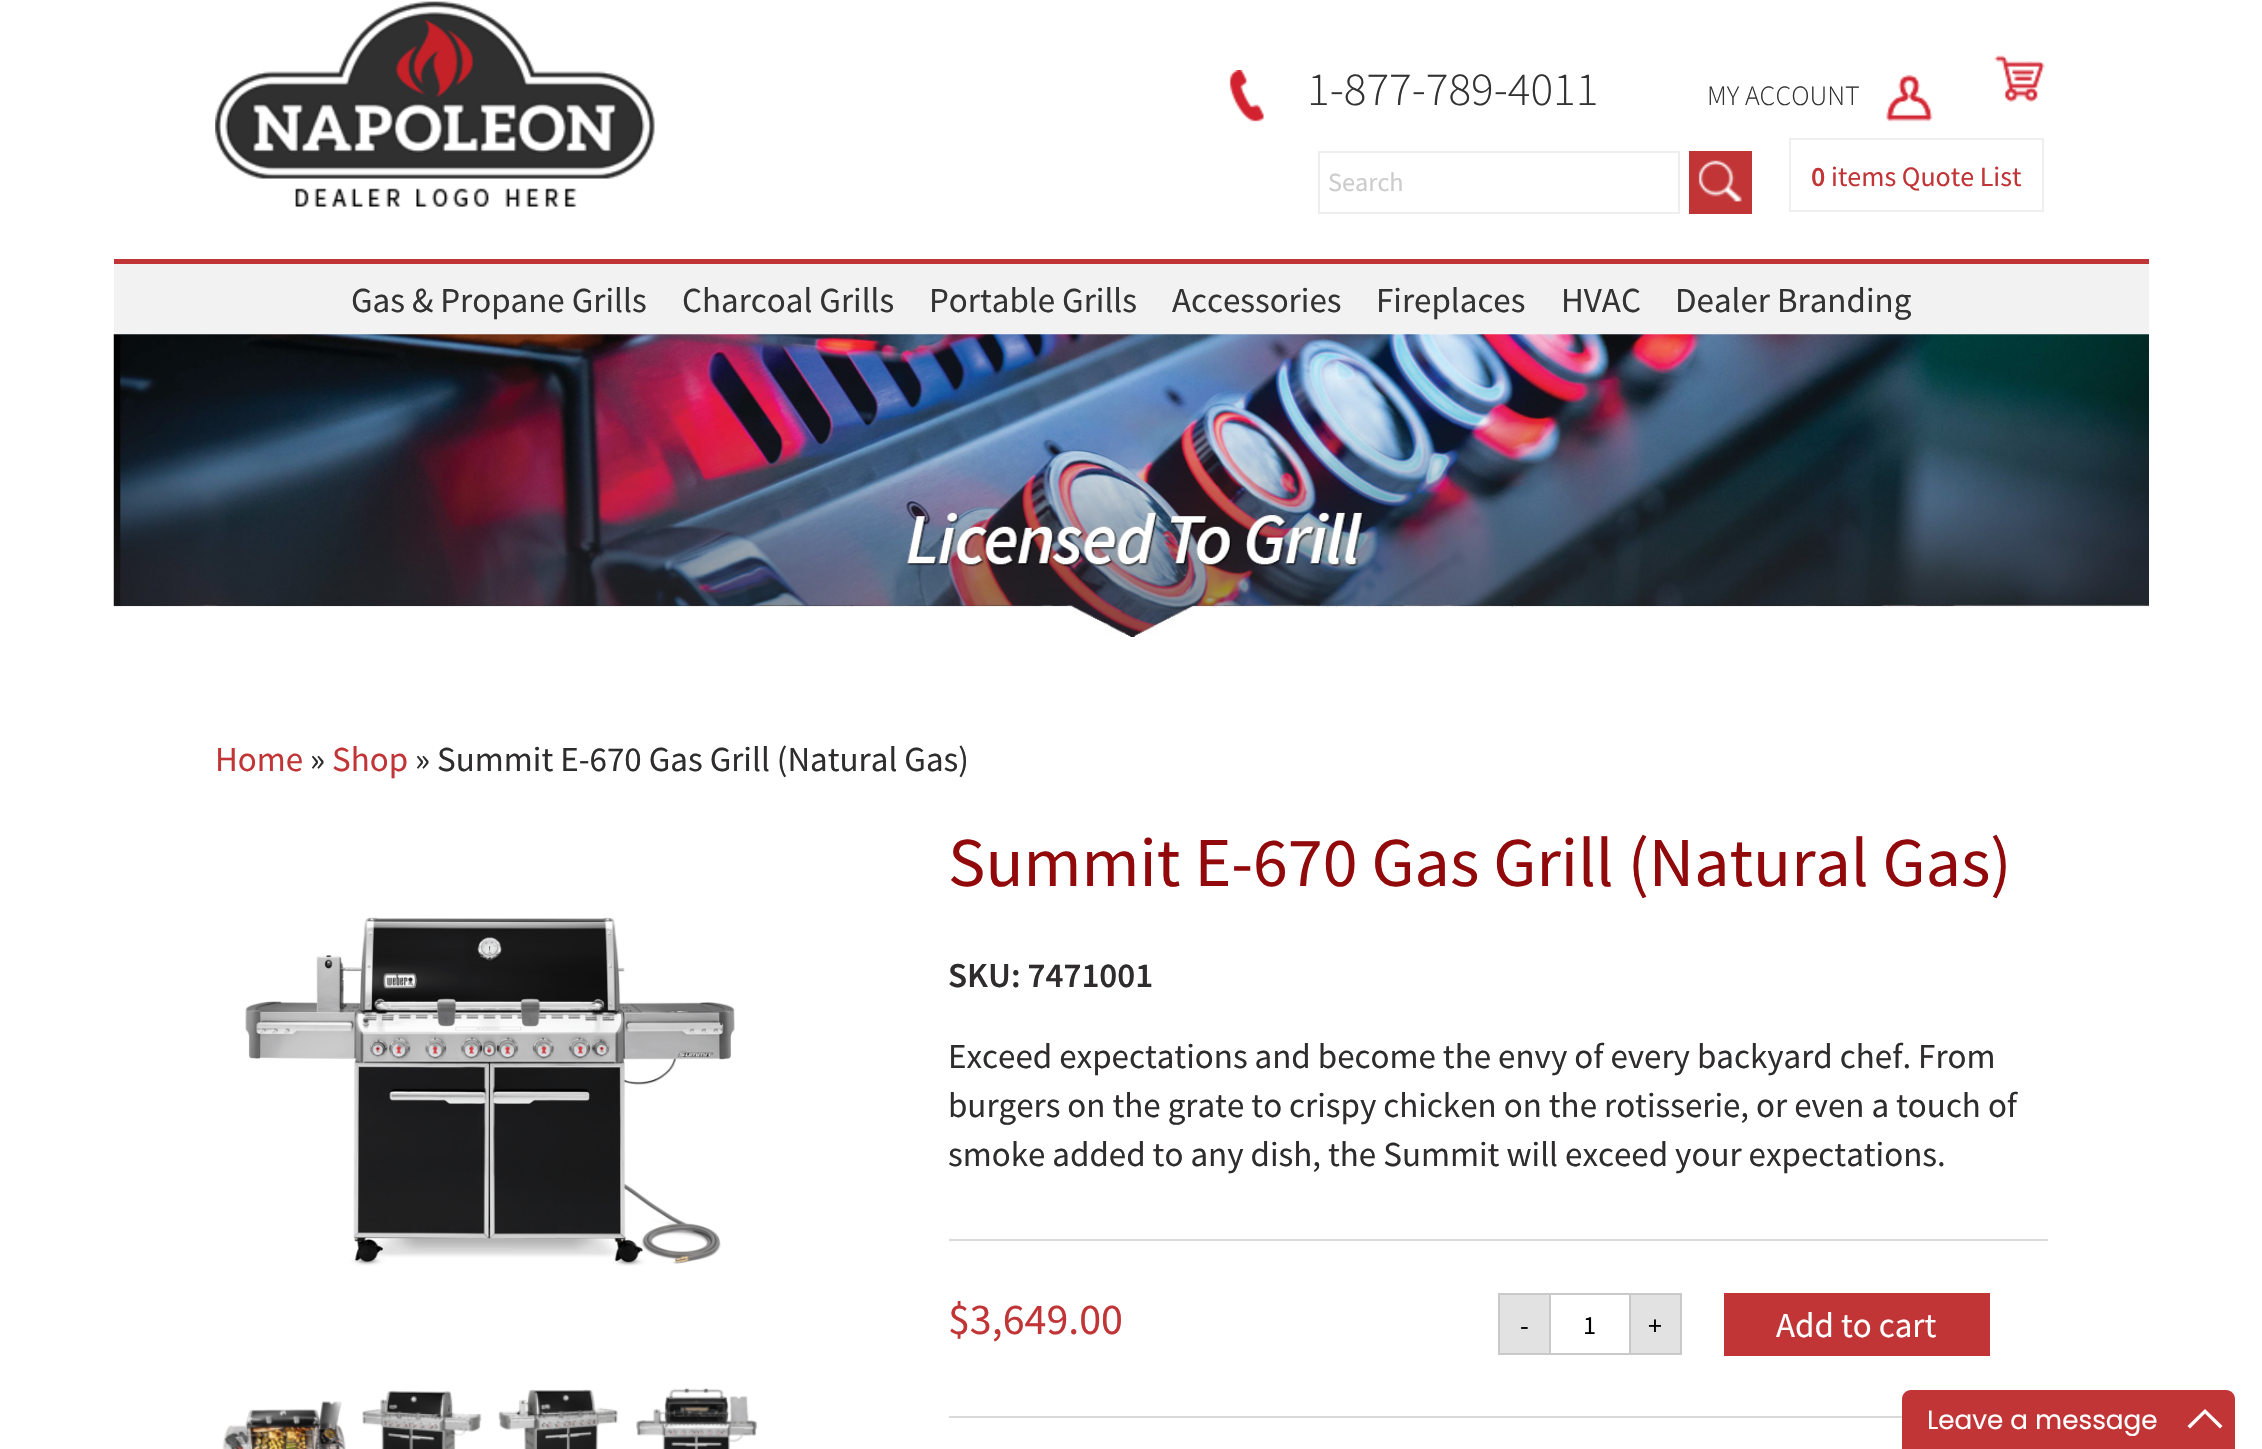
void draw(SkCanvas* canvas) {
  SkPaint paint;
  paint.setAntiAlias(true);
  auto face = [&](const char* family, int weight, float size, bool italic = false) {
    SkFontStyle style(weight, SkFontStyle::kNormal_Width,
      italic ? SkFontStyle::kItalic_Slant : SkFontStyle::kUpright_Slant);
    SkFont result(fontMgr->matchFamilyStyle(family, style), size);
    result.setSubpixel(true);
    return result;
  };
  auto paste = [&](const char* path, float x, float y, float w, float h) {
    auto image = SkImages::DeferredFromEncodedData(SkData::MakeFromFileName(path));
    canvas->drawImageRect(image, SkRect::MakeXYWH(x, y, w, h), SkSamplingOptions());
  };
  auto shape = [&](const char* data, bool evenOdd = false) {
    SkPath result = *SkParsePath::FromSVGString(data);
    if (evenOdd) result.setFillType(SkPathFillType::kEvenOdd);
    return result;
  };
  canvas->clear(0xffffffff);
  paste("img/1.png", 215, 1, 440, 206);
  paste("img/2.png", 1229, 70, 35, 52);
  paste("img/3.png", 1886, 74, 47, 48);
  paste("img/4.png", 1994, 55, 51, 47);
  paint.setStroke(true);
  paint.setStrokeWidth(2);
  paint.setColor(0xffeeeeee);
  canvas->drawRect(SkRect::MakeXYWH(1319, 152, 360, 61), paint);
  paint.setStroke(false);
  paint.setColor(0xffc13537);
  canvas->drawRect(SkRect::MakeXYWH(1689, 151, 63, 63), paint);
  paste("img/5.png", 1698, 160, 44, 42);
  paint.setStroke(true);
  paint.setColor(0xffefefef);
  canvas->drawRect(SkRect::MakeXYWH(1790, 139, 253, 72), paint);
  paint.setStroke(false);
  paint.setColor(0xfff2f2f2);
  canvas->drawRect(SkRect::MakeXYWH(114, 264, 2035, 70), paint);
  paint.setColor(0xffc13537);
  canvas->drawRect(SkRect::MakeXYWH(114, 259, 2035, 5), paint);
  paste("img/6.png", 113, 334, 2036, 303);
  paste("img/7.png", 245, 917, 490, 349);
  paste("img/8.png", 222, 1401, 124, 48);
  paste("img/9.png", 362, 1390, 120, 59);
  paste("img/10.png", 498, 1389, 120, 60);
  paste("img/11.png", 636, 1388, 122, 61);
  paint.setColor(0xffd9d9d9);
  canvas->drawRect(SkRect::MakeXYWH(949, 1239, 1099, 2), paint);
  paint.setColor(0xffe2e2e2);
  canvas->drawRect(SkRect::MakeXYWH(1499, 1294, 51, 60), paint);
  paint.setStroke(true);
  paint.setColor(0xffcac9c9);
  canvas->drawRect(SkRect::MakeXYWH(1499, 1294, 51, 60), paint);
  paint.setStroke(false);
  canvas->drawRect(SkRect::MakeXYWH(1551, 1293, 78, 2), paint);
  canvas->drawRect(SkRect::MakeXYWH(1551, 1353, 78, 2), paint);
  paint.setColor(0xffe2e2e2);
  canvas->drawRect(SkRect::MakeXYWH(1630, 1294, 51, 60), paint);
  paint.setStroke(true);
  paint.setColor(0xffcac9c9);
  canvas->drawRect(SkRect::MakeXYWH(1630, 1294, 51, 60), paint);
  paint.setStroke(false);
  paint.setColor(0xffc13537);
  canvas->drawRect(SkRect::MakeXYWH(1724, 1293, 266, 63), paint);
  paint.setColor(0xffd9d9d9);
  canvas->drawRect(SkRect::MakeXYWH(949, 1416, 953, 2), paint);
  paint.setColor(0xffc13537);
  canvas->drawPath(shape("M1911 1390H2226C2231 1390 2235 1394 2235 1399V1449H1902V1399C1902 1394 1906 1390 1911 1390Z"), paint);
  paint.setColor(0xffffffff);
  canvas->drawPath(shape("M2205 1409L2222.5 1426L2220 1428.5L2205 1413.5L2190 1428.5L2187.5 1426Z"), paint);
  auto f0 = face("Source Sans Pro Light", 300, 47.25f);
  paint.setColor(0xff333333);
  canvas->drawString("1-877-789-4011", 1307, 105, f0, paint);
  auto f1 = face("Source Sans Pro Light", 300, 28);
  canvas->drawString("MY ACCOUNT", 1707, 105, f1, paint);
  auto f2 = face("Source Sans Pro", 400, 26.25f);
  paint.setColor(0xffcccccc);
  canvas->drawString("Search", 1328, 191, f2, paint);
  auto f3 = face("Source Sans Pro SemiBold", 600, 28);
  paint.setColor(0xffc13537);
  canvas->drawString("0", 1811, 186, f3, paint);
  auto f4 = face("Source Sans Pro", 400, 28);
  canvas->drawString("items Quote List", 1831, 186, f4, paint);
  auto f5 = face("Source Sans Pro", 400, 35);
  paint.setColor(0xff333333);
  {
    const struct { const char* s; float x, y; } items[] = {
      {"Gas & Propane Grills", 351, 312},
      {"Charcoal Grills", 682, 312},
      {"Portable Grills", 929, 312},
      {"Accessories", 1172, 312},
      {"Fireplaces", 1376, 312},
      {"HVAC", 1561, 312},
      {"Dealer Branding", 1675, 312},
    };
    for (auto [s, x, y] : items) {
      canvas->drawString(s, x, y, f5, paint);
    }
  }
  paint.setColor(0xffc13537);
  canvas->drawString("Home", 215, 771, f5, paint);
  paint.setColor(0xff2e2c2d);
  canvas->drawString("»", 310, 771, f5, paint);
  paint.setColor(0xffc13537);
  canvas->drawString("Shop", 332, 771, f5, paint);
  paint.setColor(0xff2e2c2d);
  canvas->drawString("» Summit E-670 Gas Grill (Natural Gas)", 415, 771, f5, paint);
  auto f6 = face("Source Sans Pro", 400, 70);
  paint.setColor(0xff92090b);
  canvas->drawString("Summit E-670 Gas Grill (Natural Gas)", 948, 886, f6, paint);
  auto f7 = face("Source Sans Pro SemiBold", 600, 35);
  paint.setColor(0xff2e2c2d);
  canvas->drawString("SKU: 7471001", 948, 987, f7, paint);
  {
    const struct { const char* s; float x, y; } items[] = {
      {"Exceed expectations and become the envy of every backyard chef. From", 948, 1068},
      {"burgers on the grate to crispy chicken on the rotisserie, or even a touch of", 948, 1117},
      {"smoke added to any dish, the Summit will exceed your expectations.", 948, 1166},
    };
    for (auto [s, x, y] : items) {
      canvas->drawString(s, x, y, f5, paint);
    }
  }
  auto f8 = face("Source Sans Pro", 400, 44);
  paint.setColor(0xffc13537);
  canvas->drawString("$3,649.00", 948, 1334, f8, paint);
  paint.setColor(0xff000000);
  canvas->drawString("-", 1520, 1335, f4, paint);
  canvas->drawString("1", 1583, 1334, f2, paint);
  canvas->drawString("+", 1648, 1335, f4, paint);
  paint.setColor(0xffffffff);
  canvas->drawString("Add to cart", 1776, 1337, f5, paint);
  auto f9 = face("Poppins", 400, 26.25f);
  canvas->drawString("Leave a message", 1927, 1429, f9, paint);
}
